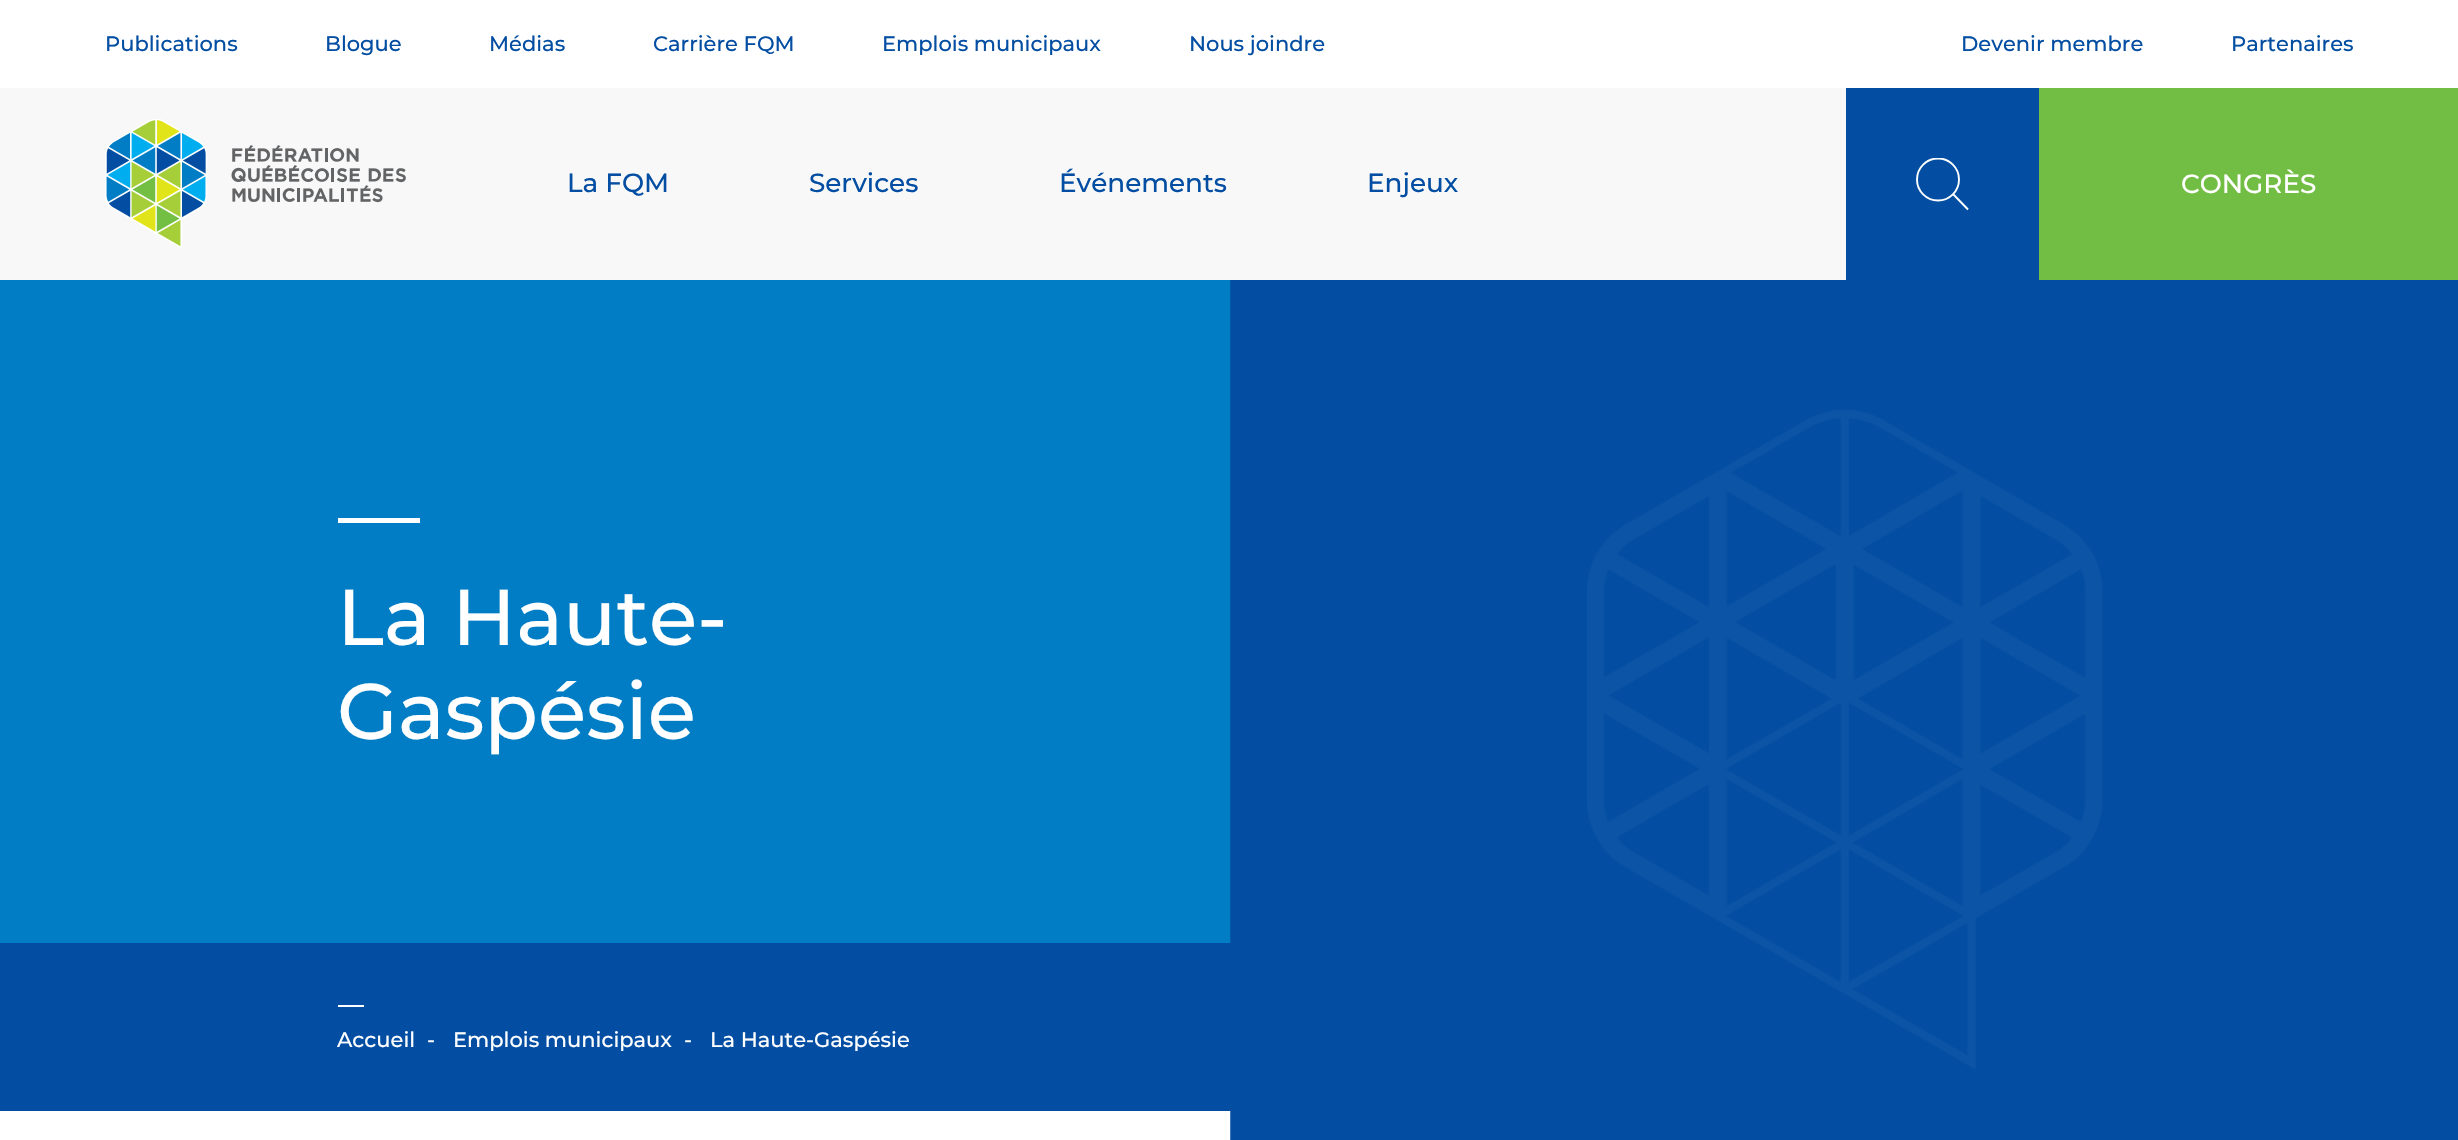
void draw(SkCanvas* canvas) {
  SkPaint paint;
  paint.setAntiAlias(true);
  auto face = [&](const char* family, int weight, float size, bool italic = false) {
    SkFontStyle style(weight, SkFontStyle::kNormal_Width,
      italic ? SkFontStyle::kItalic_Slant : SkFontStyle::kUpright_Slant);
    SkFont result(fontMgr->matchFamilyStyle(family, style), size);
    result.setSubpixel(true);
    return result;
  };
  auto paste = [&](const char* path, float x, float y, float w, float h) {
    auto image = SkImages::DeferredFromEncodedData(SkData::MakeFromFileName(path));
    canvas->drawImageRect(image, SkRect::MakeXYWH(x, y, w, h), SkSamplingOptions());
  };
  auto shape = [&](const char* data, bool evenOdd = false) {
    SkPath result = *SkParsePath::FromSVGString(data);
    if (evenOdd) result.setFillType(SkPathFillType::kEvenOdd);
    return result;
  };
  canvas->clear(0xffffffff);
  paint.setColor(0xfff8f8f8);
  canvas->drawRect(SkRect::MakeXYWH(0, 88, 1846, 192), paint);
  paste("img/1.png", 105, 119, 301, 130);
  paint.setColor(0xff034ea2);
  canvas->drawRect(SkRect::MakeXYWH(1846, 88, 193, 192), paint);
  canvas->save();
  canvas->clipRect(SkRect::MakeXYWH(1916, 158, 53, 52));
  paint.setStroke(true);
  paint.setStrokeWidth(1.9f);
  paint.setColor(0xffffffff);
  canvas->drawCircle(1938, 179.5f, 21, paint);
  canvas->restore();
  canvas->drawPath(shape("M1953 194L1968 209.5"), paint);
  paint.setStroke(false);
  {
    const struct { float x, y, w, h; SkColor color; } items[] = {
      {2039, 88, 419, 192, 0xff72be44},
      {0, 280, 1231, 663, 0xff007dc4},
      {338, 518, 82, 5, 0xffffffff},
      {0, 943, 1231, 168, 0xff034ea2},
      {338, 1005, 26, 2, 0xffffffff},
    };
    for (auto [x, y, w, h, color] : items) {
      paint.setColor(color);
      canvas->drawRect(SkRect::MakeXYWH(x, y, w, h), paint);
    }
  }
  paste("img/2.png", 1230, 280, 1228, 860);
  auto f0 = face("Montserrat", 500, 21);
  paint.setColor(0xff034ea2);
  {
    const struct { const char* s; float x, y; } items[] = {
      {"Publications", 105, 51},
      {"Blogue", 325, 51},
      {"Médias", 489, 51},
      {"Carrière FQM", 653, 51},
      {"Emplois municipaux", 882, 51},
      {"Nous joindre", 1189, 51},
      {"Devenir membre", 1961, 51},
      {"Partenaires", 2231, 51},
    };
    for (auto [s, x, y] : items) {
      canvas->drawString(s, x, y, f0, paint);
    }
  }
  auto f1 = face("Montserrat", 500, 26.25f);
  {
    const struct { const char* s; float x, y; } items[] = {
      {"La FQM", 567, 192},
      {"Services", 809, 192},
      {"Événements", 1059, 192},
      {"Enjeux", 1367, 192},
    };
    for (auto [s, x, y] : items) {
      canvas->drawString(s, x, y, f1, paint);
    }
  }
  paint.setColor(0xffffffff);
  canvas->drawString("CONGRÈS", 2181, 193, f1, paint);
  auto f2 = face("Montserrat", 500, 78.75f);
  canvas->drawString("La Haute-", 337, 645, f2, paint);
  canvas->drawString("Gaspésie", 337, 739, f2, paint);
  {
    const struct { const char* s; float x, y; } items[] = {
      {"Accueil", 337, 1047},
      {"-", 427, 1047},
      {"Emplois municipaux", 453, 1047},
      {"-", 684, 1047},
      {"La Haute-Gaspésie", 710, 1047},
    };
    for (auto [s, x, y] : items) {
      canvas->drawString(s, x, y, f0, paint);
    }
  }
}
